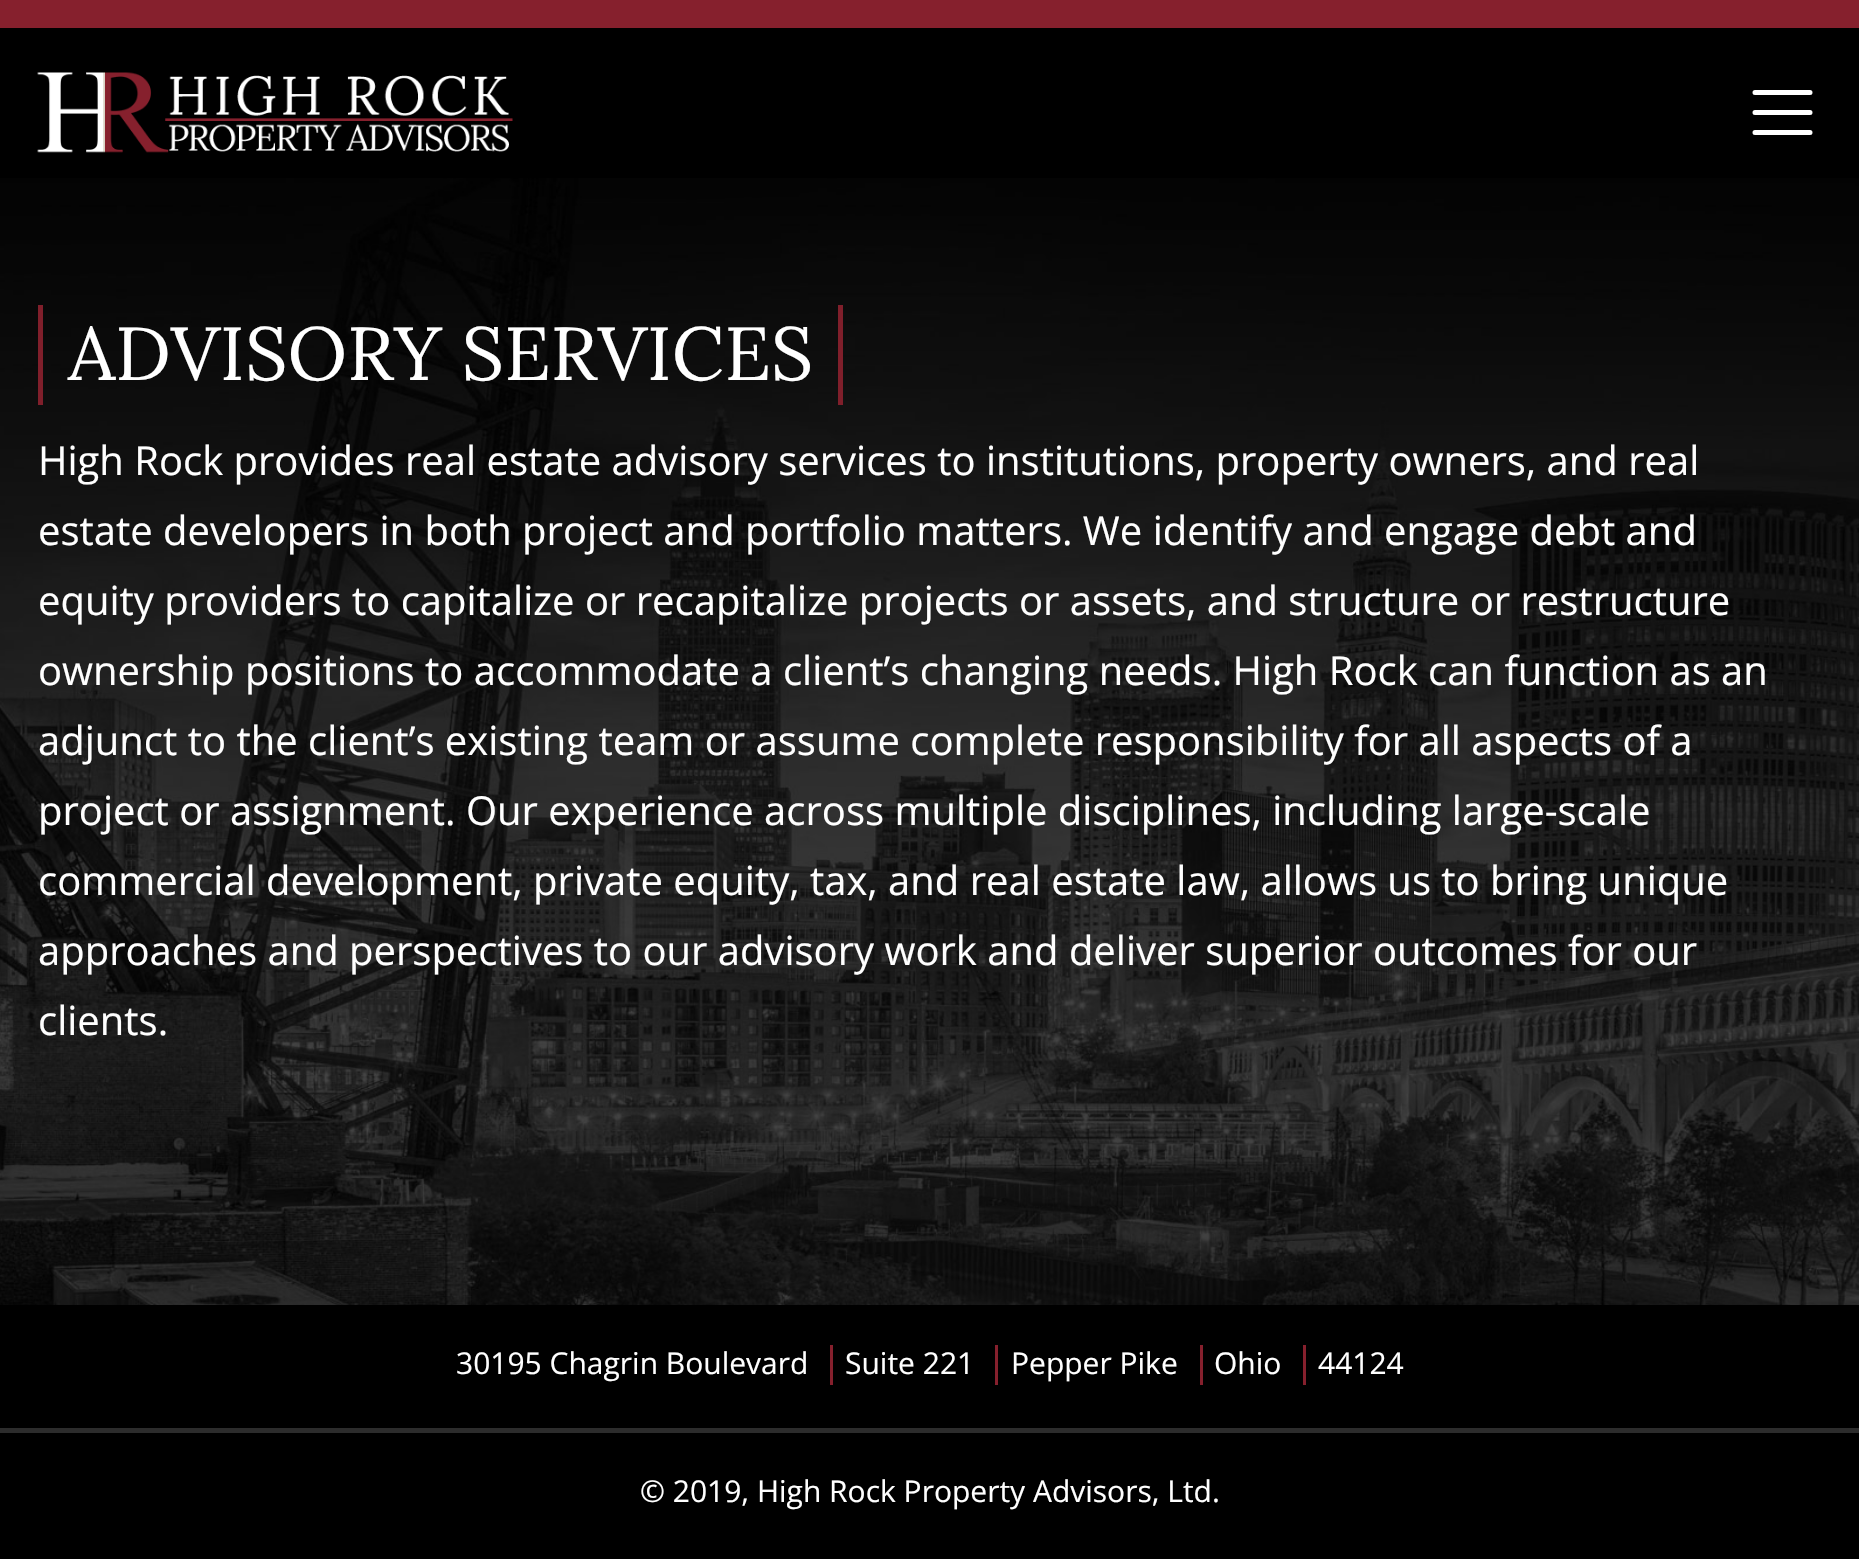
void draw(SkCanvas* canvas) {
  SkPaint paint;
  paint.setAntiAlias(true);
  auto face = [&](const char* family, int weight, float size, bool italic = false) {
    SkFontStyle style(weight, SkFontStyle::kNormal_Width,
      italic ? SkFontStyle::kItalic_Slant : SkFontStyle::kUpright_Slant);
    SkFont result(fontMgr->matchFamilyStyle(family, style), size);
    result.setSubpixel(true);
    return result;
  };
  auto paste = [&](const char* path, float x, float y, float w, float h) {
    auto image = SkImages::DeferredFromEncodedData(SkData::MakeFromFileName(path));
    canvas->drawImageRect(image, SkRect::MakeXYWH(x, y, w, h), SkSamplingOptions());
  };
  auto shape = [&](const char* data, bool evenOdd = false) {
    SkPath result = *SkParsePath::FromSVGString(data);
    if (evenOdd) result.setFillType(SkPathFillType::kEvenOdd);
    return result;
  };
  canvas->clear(0xff000000);
  paste("img/1.png", 0, 178, 1859, 1127);
  paint.setColor(0xff86202d);
  canvas->drawRect(SkRect::MakeXYWH(0, 0, 1859, 28), paint);
  paste("img/2.png", 37, 72, 476, 81);
  paint.setStroke(true);
  paint.setStrokeWidth(5);
  paint.setStrokeCap(SkPaint::kRound_Cap);
  paint.setColor(0xffffffff);
  canvas->drawPath(shape("M1755 92.5H1810M1755 112.5H1810M1755 132.5H1810"), paint);
  paint.setStroke(false);
  {
    const struct { float x, y, w, h; SkColor color; } items[] = {
      {838, 305, 5, 100, 0xff801f2b},
      {38, 305, 5, 100, 0xff801f2b},
      {830, 1345, 3, 40, 0xff86202d},
      {995, 1345, 3, 40, 0xff86202d},
      {1200, 1345, 3, 40, 0xff86202d},
      {1303, 1345, 3, 40, 0xff86202d},
      {0, 1428, 1859, 5, 0xff2c2c2c},
    };
    for (auto [x, y, w, h, color] : items) {
      paint.setColor(color);
      canvas->drawRect(SkRect::MakeXYWH(x, y, w, h), paint);
    }
  }
  auto f0 = face("Lora", 400, 75);
  paint.setColor(0xffffffff);
  canvas->drawString("ADVISORY SERVICES", 68, 380, f0, paint);
  auto f1 = face("Open Sans", 400, 40);
  {
    const struct { const char* s; float x, y; } items[] = {
      {"High Rock provides real estate advisory services to institutions, property owners, and real", 38, 475},
      {"estate developers in both project and portfolio matters. We identify and engage debt and", 38, 545},
      {"equity providers to capitalize or recapitalize projects or assets, and structure or restructure", 38, 615},
      {"ownership positions to accommodate a client’s changing needs. High Rock can function as an", 38, 685},
      {"adjunct to the client’s existing team or assume complete responsibility for all aspects of a", 38, 755},
      {"project or assignment. Our experience across multiple disciplines, including large-scale", 38, 825},
      {"commercial development, private equity, tax, and real estate law, allows us to bring unique", 38, 895},
      {"approaches and perspectives to our advisory work and deliver superior outcomes for our", 38, 965},
      {"clients.", 38, 1035},
    };
    for (auto [s, x, y] : items) {
      canvas->drawString(s, x, y, f1, paint);
    }
  }
  auto f2 = face("Open Sans", 400, 30);
  {
    const struct { const char* s; float x, y; } items[] = {
      {"30195 Chagrin Boulevard", 456, 1374},
      {"Suite 221", 845, 1374},
      {"Pepper Pike", 1011, 1374},
      {"Ohio", 1214, 1374},
      {"44124", 1318, 1374},
      {"© 2019, High Rock Property Advisors, Ltd.", 640, 1502},
    };
    for (auto [s, x, y] : items) {
      canvas->drawString(s, x, y, f2, paint);
    }
  }
}
